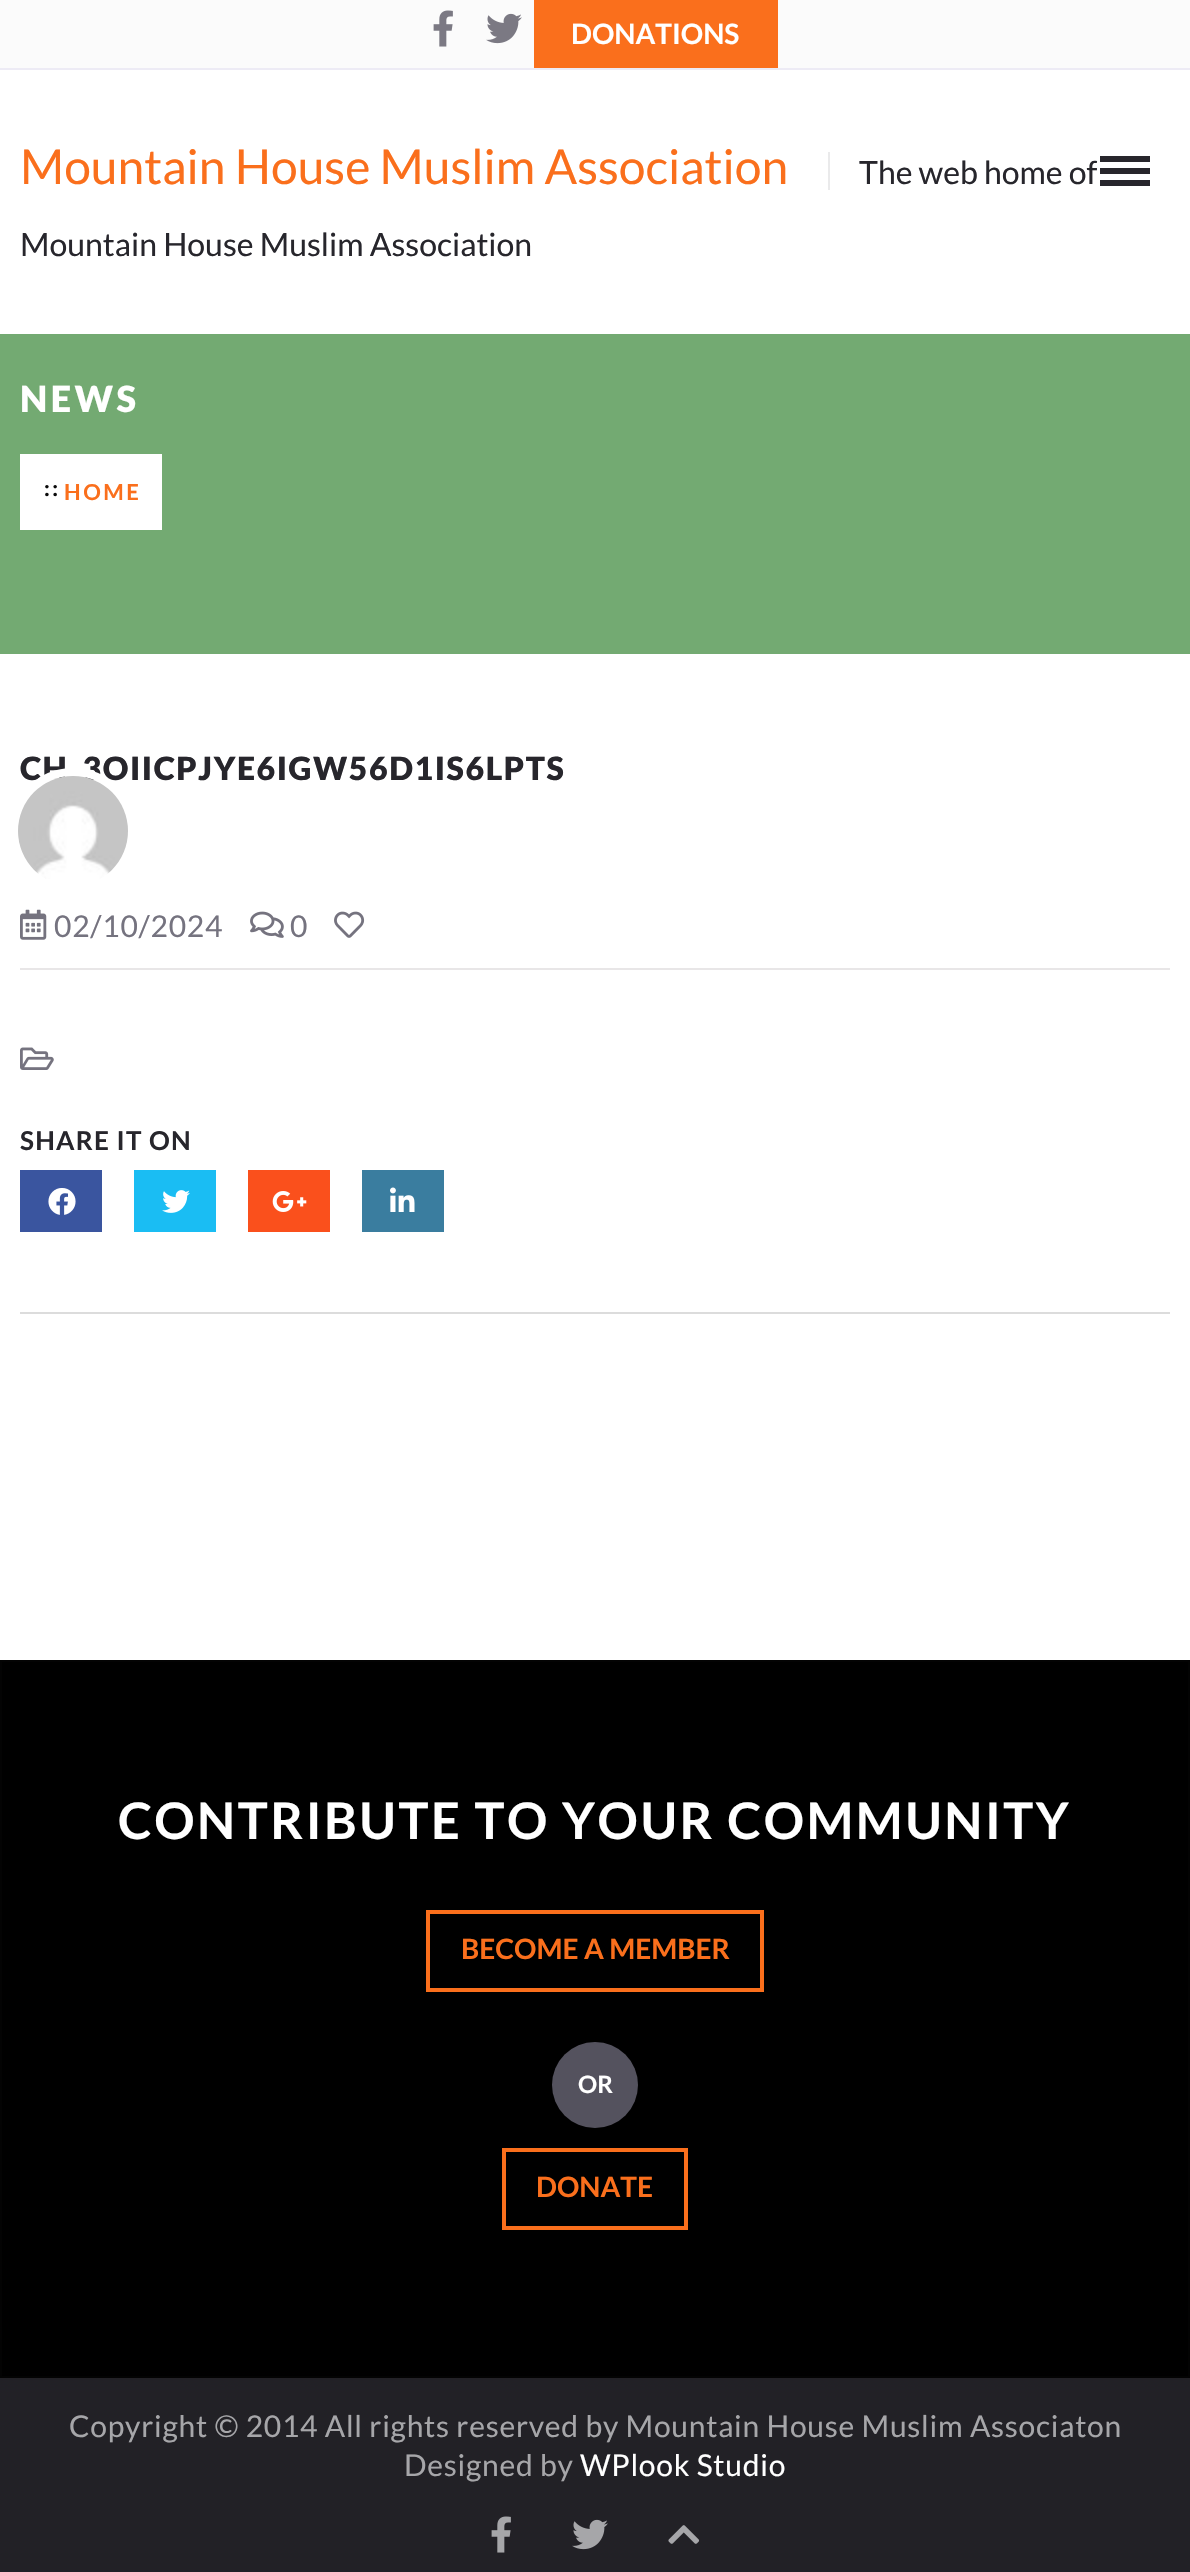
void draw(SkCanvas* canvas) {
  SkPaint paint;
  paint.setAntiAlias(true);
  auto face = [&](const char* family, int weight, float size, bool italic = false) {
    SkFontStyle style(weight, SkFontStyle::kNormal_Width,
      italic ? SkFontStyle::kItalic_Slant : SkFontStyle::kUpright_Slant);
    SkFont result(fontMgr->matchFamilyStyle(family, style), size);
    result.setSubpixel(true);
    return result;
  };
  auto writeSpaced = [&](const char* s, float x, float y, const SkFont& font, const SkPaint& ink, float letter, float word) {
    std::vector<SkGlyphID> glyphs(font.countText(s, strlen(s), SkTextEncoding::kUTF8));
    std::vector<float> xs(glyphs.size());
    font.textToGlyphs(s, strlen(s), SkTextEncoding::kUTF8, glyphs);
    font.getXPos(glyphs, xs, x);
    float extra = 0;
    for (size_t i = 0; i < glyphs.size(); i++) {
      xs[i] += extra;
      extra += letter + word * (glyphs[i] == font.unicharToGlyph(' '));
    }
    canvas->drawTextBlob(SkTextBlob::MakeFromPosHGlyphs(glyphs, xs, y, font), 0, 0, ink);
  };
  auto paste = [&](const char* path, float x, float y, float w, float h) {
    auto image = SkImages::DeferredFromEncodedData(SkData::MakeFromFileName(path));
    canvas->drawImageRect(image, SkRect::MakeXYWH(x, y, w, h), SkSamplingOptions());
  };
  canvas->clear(0xffffffff);
  paint.setColor(0xfffbfbfb);
  canvas->drawRect(SkRect::MakeXYWH(0, 0, 1190, 68), paint);
  paint.setColor(0xffedebf5);
  canvas->drawRect(SkRect::MakeXYWH(0, 68, 1190, 2), paint);
  paste("img/1.png", 433, 10, 20, 37);
  paste("img/2.png", 486, 13, 36, 31);
  {
    const struct { float x, y, w, h; SkColor color; } items[] = {
      {534, 0, 244, 68, 0xfffa6f1c},
      {828, 152, 2, 38, 0xffeaeaeb},
      {1100, 168, 50, 6, 0xff27262c},
      {1100, 156, 50, 6, 0xff27262c},
      {1100, 180, 50, 6, 0xff27262c},
      {0, 334, 1190, 320, 0xff73aa72},
      {20, 454, 142, 76, 0xffffffff},
      {20, 968, 1150, 2, 0xffe8e6e7},
    };
    for (auto [x, y, w, h, color] : items) {
      paint.setColor(color);
      canvas->drawRect(SkRect::MakeXYWH(x, y, w, h), paint);
    }
  }
  paste("img/4.png", 20, 909, 27, 31);
  paste("img/5.png", 250, 911, 34, 27);
  paste("img/6.png", 334, 911, 31, 27);
  paste("img/7.png", 20, 1047, 34, 23);
  paint.setColor(0xffdcdcdc);
  canvas->drawRect(SkRect::MakeXYWH(20, 1312, 1150, 2), paint);
  paint.setColor(0xff3a559f);
  canvas->drawRect(SkRect::MakeXYWH(20, 1170, 82, 62), paint);
  paste("img/8.png", 48, 1188, 28, 27);
  paint.setColor(0xff1abdf3);
  canvas->drawRect(SkRect::MakeXYWH(134, 1170, 82, 62), paint);
  paste("img/9.png", 162, 1190, 28, 23);
  paint.setColor(0xfffa501c);
  canvas->drawRect(SkRect::MakeXYWH(248, 1170, 82, 62), paint);
  paste("img/10.png", 272, 1191, 35, 21);
  paint.setColor(0xff3a7d9f);
  canvas->drawRect(SkRect::MakeXYWH(362, 1170, 82, 62), paint);
  paste("img/11.png", 390, 1187, 25, 25);
  paint.setColor(0xff000000);
  canvas->drawRect(SkRect::MakeXYWH(1, 1661, 1188, 716), paint);
  paint.setStroke(true);
  paint.setStrokeWidth(2);
  paint.setColor(0xff030303);
  canvas->drawRect(SkRect::MakeXYWH(1, 1661, 1188, 716), paint);
  paint.setStrokeWidth(4);
  paint.setColor(0xfffa6f1c);
  canvas->drawRect(SkRect::MakeXYWH(428, 1912, 334, 78), paint);
  paint.setStroke(false);
  paint.setColor(0xff54525e);
  canvas->drawCircle(595, 2085, 43, paint);
  paint.setStroke(true);
  paint.setColor(0xfffa6f1c);
  canvas->drawRect(SkRect::MakeXYWH(504, 2150, 182, 78), paint);
  paint.setStroke(false);
  paint.setColor(0xff222126);
  canvas->drawRect(SkRect::MakeXYWH(0, 2378, 1190, 194), paint);
  paste("img/12.png", 491, 2516, 20, 37);
  paste("img/13.png", 572, 2519, 36, 31);
  paste("img/14.png", 668, 2525, 32, 19);
  auto f0 = face("Lato", 700, 28);
  paint.setColor(0xffffffff);
  canvas->drawString("DONATIONS", 571, 44, f0, paint);
  auto f1 = face("Lato", 400, 48);
  paint.setColor(0xfffa6f1c);
  canvas->drawString("Mountain House Muslim Association", 20, 184, f1, paint);
  auto f2 = face("Lato", 400, 32);
  paint.setColor(0xff27262c);
  canvas->drawString("The web home of", 859, 184, f2, paint);
  canvas->drawString("Mountain House Muslim Association", 20, 256, f2, paint);
  auto f3 = face("Lato", 900, 36);
  paint.setColor(0xffffffff);
  writeSpaced("NEWS", 20, 412, f3, paint, 3.5f, 0);
  auto f4 = face("Lato", 700, 22);
  paint.setColor(0xff0a0a0a);
  writeSpaced("::", 44, 496, f4, paint, 2.5f, 0);
  paint.setColor(0xfffa6f1c);
  writeSpaced("HOME", 64, 500, f4, paint, 2.5f, 0);
  auto f5 = face("Lato", 900, 32);
  paint.setColor(0xff27262c);
  writeSpaced("CH_3OIICPJYE6IGW56D1IS6LPTS", 20, 780, f5, paint, 1.6f, 0);
  paint.setStroke(true);
  paint.setStrokeWidth(8);
  paint.setColor(0xffffffff);
  canvas->drawCircle(73, 831, 59, paint);
  paste("img/3.png", 18, 776, 110, 103);
  auto f6 = face("Lato", 400, 30);
  paint.setStroke(false);
  paint.setColor(0xff75737f);
  writeSpaced("02/10/2024", 54, 937, f6, paint, 0.75f, 0);
  writeSpaced("0", 290, 937, f6, paint, 0.75f, 0);
  auto f7 = face("Lato", 700, 26);
  paint.setColor(0xff27262c);
  writeSpaced("SHARE IT ON", 20, 1150, f7, paint, 1.25f, 0);
  auto f8 = face("Lato", 700, 50.4f);
  paint.setColor(0xffffffff);
  writeSpaced("CONTRIBUTE TO YOUR COMMUNITY", 118, 1839, f8, paint, 2.5f, 0);
  paint.setColor(0xfffa6f1c);
  canvas->drawString("BECOME A MEMBER", 461, 1959, f0, paint);
  auto f9 = face("Lato", 700, 24);
  paint.setColor(0xffffffff);
  canvas->drawString("OR", 578, 2093, f9, paint);
  paint.setColor(0xfffa6f1c);
  canvas->drawString("DONATE", 536, 2197, f0, paint);
  paint.setColor(0xffa6a6a9);
  writeSpaced("Copyright © 2014 All rights reserved by Mountain House Muslim Associaton", 69, 2437, f6, paint, 0.75f, 0);
  writeSpaced("Designed by", 404, 2476, f6, paint, 0.75f, 0);
  paint.setColor(0xffffffff);
  writeSpaced("WPlook Studio", 580, 2476, f6, paint, 0.75f, 0);
}
